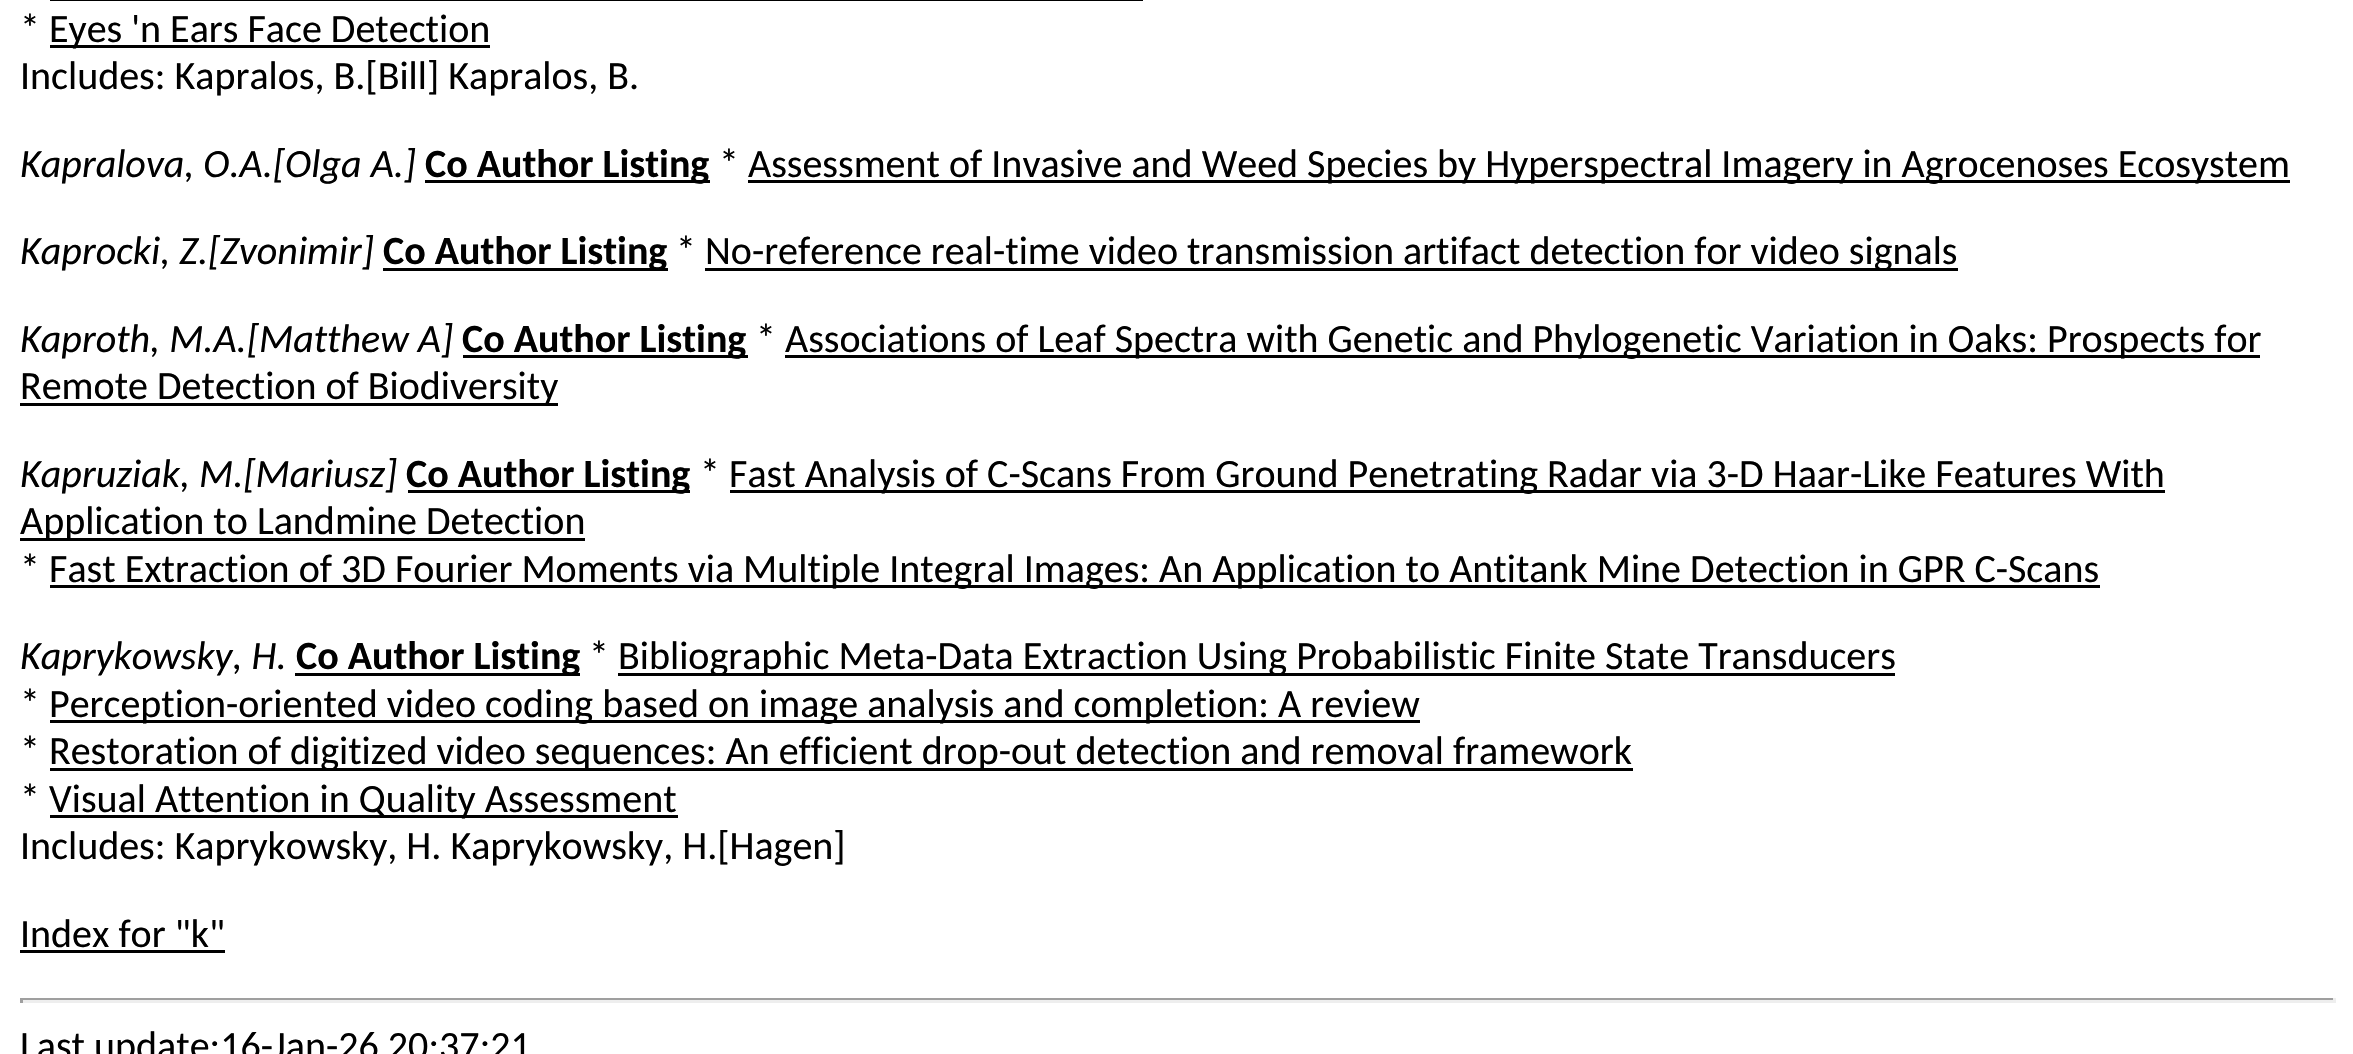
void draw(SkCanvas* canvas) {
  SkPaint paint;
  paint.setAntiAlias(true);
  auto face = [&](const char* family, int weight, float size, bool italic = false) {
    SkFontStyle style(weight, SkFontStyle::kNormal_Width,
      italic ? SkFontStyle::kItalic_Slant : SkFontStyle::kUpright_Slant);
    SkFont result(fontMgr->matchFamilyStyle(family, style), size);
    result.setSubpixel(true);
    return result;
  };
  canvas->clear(0xffffffff);
  {
    const struct { float x, y, w, h; SkColor color; } items[] = {
      {50, 0, 1093, 1, 0xff000000},
      {50, 45, 440, 3, 0xff000000},
      {425, 180, 285, 3, 0xff000000},
      {748, 180, 1542, 3, 0xff000000},
      {383, 268, 285, 3, 0xff000000},
      {705, 268, 1253, 3, 0xff000000},
      {463, 355, 285, 3, 0xff000000},
      {785, 355, 1475, 3, 0xff000000},
      {20, 403, 538, 3, 0xff000000},
      {408, 490, 282, 3, 0xff000000},
      {730, 490, 1435, 3, 0xff000000},
      {20, 538, 565, 3, 0xff000000},
      {50, 585, 2050, 3, 0xff000000},
      {295, 673, 285, 3, 0xff000000},
      {618, 673, 1277, 3, 0xff000000},
      {50, 720, 1370, 3, 0xff000000},
      {50, 768, 1583, 3, 0xff000000},
      {50, 815, 628, 3, 0xff000000},
      {20, 950, 205, 3, 0xff000000},
      {20, 998, 2315, 2, 0xff9f9f9f},
      {2333, 998, 3, 5, 0xffeeeeee},
      {20, 1000, 2315, 3, 0xffeeeeee},
      {20, 998, 3, 5, 0xff9f9f9f},
    };
    for (auto [x, y, w, h, color] : items) {
      paint.setColor(color);
      canvas->drawRect(SkRect::MakeXYWH(x, y, w, h), paint);
    }
  }
  auto f0 = face("Carlito", 400, 40);
  paint.setColor(0xff000000);
  {
    const struct { const char* s; float x, y; } items[] = {
      {"*", 20, 42},
      {"Eyes 'n Ears Face Detection", 49, 42},
      {"Includes: Kapralos, B.[Bill] Kapralos, B.", 20, 89},
    };
    for (auto [s, x, y] : items) {
      canvas->drawString(s, x, y, f0, paint);
    }
  }
  auto f1 = face("Carlito", 400, 40, true);
  canvas->drawString("Kapralova, O.A.[Olga A.]", 20, 177, f1, paint);
  auto f2 = face("Carlito", 700, 40);
  canvas->drawString("Co Author Listing", 425, 177, f2, paint);
  canvas->drawString("*", 719, 177, f0, paint);
  canvas->drawString("Assessment of Invasive and Weed Species by Hyperspectral Imagery in Agrocenoses Ecosystem", 748, 177, f0, paint);
  canvas->drawString("Kaprocki, Z.[Zvonimir]", 20, 264, f1, paint);
  canvas->drawString("Co Author Listing", 383, 264, f2, paint);
  canvas->drawString("*", 676, 264, f0, paint);
  canvas->drawString("No-reference real-time video transmission artifact detection for video signals", 705, 264, f0, paint);
  canvas->drawString("Kaproth, M.A.[Matthew A]", 20, 352, f1, paint);
  canvas->drawString("Co Author Listing", 462, 352, f2, paint);
  {
    const struct { const char* s; float x, y; } items[] = {
      {"*", 756, 352},
      {"Associations of Leaf Spectra with Genetic and Phylogenetic Variation in Oaks: Prospects for", 785, 352},
      {"Remote Detection of Biodiversity", 20, 399},
    };
    for (auto [s, x, y] : items) {
      canvas->drawString(s, x, y, f0, paint);
    }
  }
  canvas->drawString("Kapruziak, M.[Mariusz]", 20, 487, f1, paint);
  canvas->drawString("Co Author Listing", 406, 487, f2, paint);
  {
    const struct { const char* s; float x, y; } items[] = {
      {"*", 700, 487},
      {"Fast Analysis of C-Scans From Ground Penetrating Radar via 3-D Haar-Like Features With", 729, 487},
      {"Application to Landmine Detection", 20, 534},
      {"*", 20, 582},
      {"Fast Extraction of 3D Fourier Moments via Multiple Integral Images: An Application to Antitank Mine Detection in GPR C-Scans", 49, 582},
    };
    for (auto [s, x, y] : items) {
      canvas->drawString(s, x, y, f0, paint);
    }
  }
  canvas->drawString("Kaprykowsky, H.", 20, 669, f1, paint);
  canvas->drawString("Co Author Listing", 296, 669, f2, paint);
  {
    const struct { const char* s; float x, y; } items[] = {
      {"*", 589, 669},
      {"Bibliographic Meta-Data Extraction Using Probabilistic Finite State Transducers", 618, 669},
      {"*", 20, 717},
      {"Perception-oriented video coding based on image analysis and completion: A review", 49, 717},
      {"*", 20, 764},
      {"Restoration of digitized video sequences: An efficient drop-out detection and removal framework", 49, 764},
      {"*", 20, 812},
      {"Visual Attention in Quality Assessment", 49, 812},
      {"Includes: Kaprykowsky, H. Kaprykowsky, H.[Hagen]", 20, 859},
      {"Index for \"k\"", 20, 947},
      {"Last update:16-Jan-26 20:37:21", 20, 1059},
    };
    for (auto [s, x, y] : items) {
      canvas->drawString(s, x, y, f0, paint);
    }
  }
}
